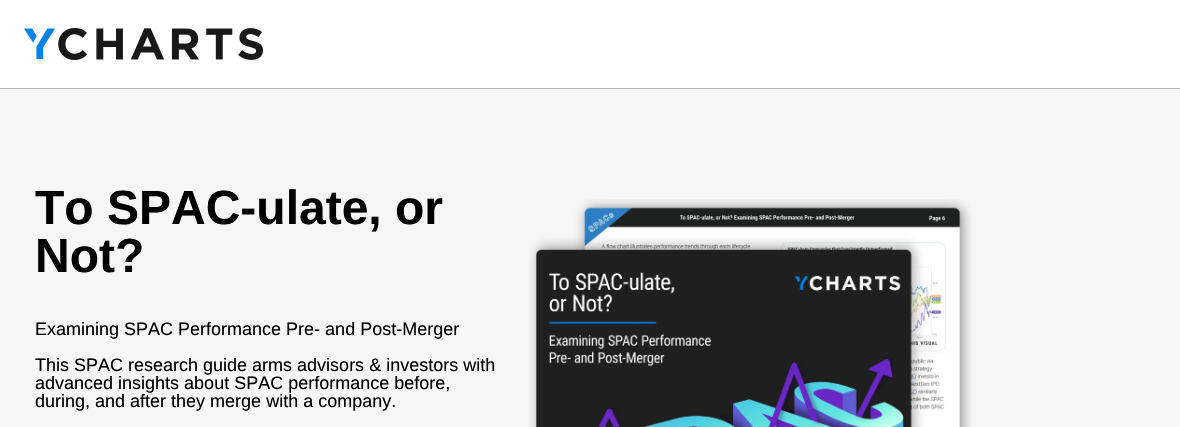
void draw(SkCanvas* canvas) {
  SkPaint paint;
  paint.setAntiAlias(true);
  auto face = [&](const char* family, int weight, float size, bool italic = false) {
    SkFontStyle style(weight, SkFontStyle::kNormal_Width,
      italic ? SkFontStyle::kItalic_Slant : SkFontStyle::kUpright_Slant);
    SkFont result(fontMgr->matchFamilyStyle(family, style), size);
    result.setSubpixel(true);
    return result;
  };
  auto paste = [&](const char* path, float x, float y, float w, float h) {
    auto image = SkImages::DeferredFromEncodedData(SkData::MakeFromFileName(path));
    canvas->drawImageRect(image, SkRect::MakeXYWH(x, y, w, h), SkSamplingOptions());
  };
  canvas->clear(0xfff6f6f6);
  paint.setColor(0xffffffff);
  canvas->drawRect(SkRect::MakeXYWH(0, 0, 1180, 88), paint);
  paint.setColor(0xffb2b2b2);
  canvas->drawRect(SkRect::MakeXYWH(0, 88, 1180, 1), paint);
  paste("img/1.png", 24, 28, 239, 32);
  paste("img/2.png", 529, 199, 443, 228);
  auto f0 = face("Liberation Sans", 700, 48);
  paint.setColor(0xff000000);
  canvas->drawString("To SPAC-ulate, or", 35, 224, f0, paint);
  canvas->drawString("Not?", 35, 272, f0, paint);
  auto f1 = face("Liberation Sans", 400, 18);
  {
    const struct { const char* s; float x, y; } items[] = {
      {"Examining SPAC Performance Pre- and Post-Merger", 35, 335},
      {"This SPAC research guide arms advisors & investors with", 35, 371},
      {"advanced insights about SPAC performance before,", 35, 389},
      {"during, and after they merge with a company.", 35, 407},
    };
    for (auto [s, x, y] : items) {
      canvas->drawString(s, x, y, f1, paint);
    }
  }
}
